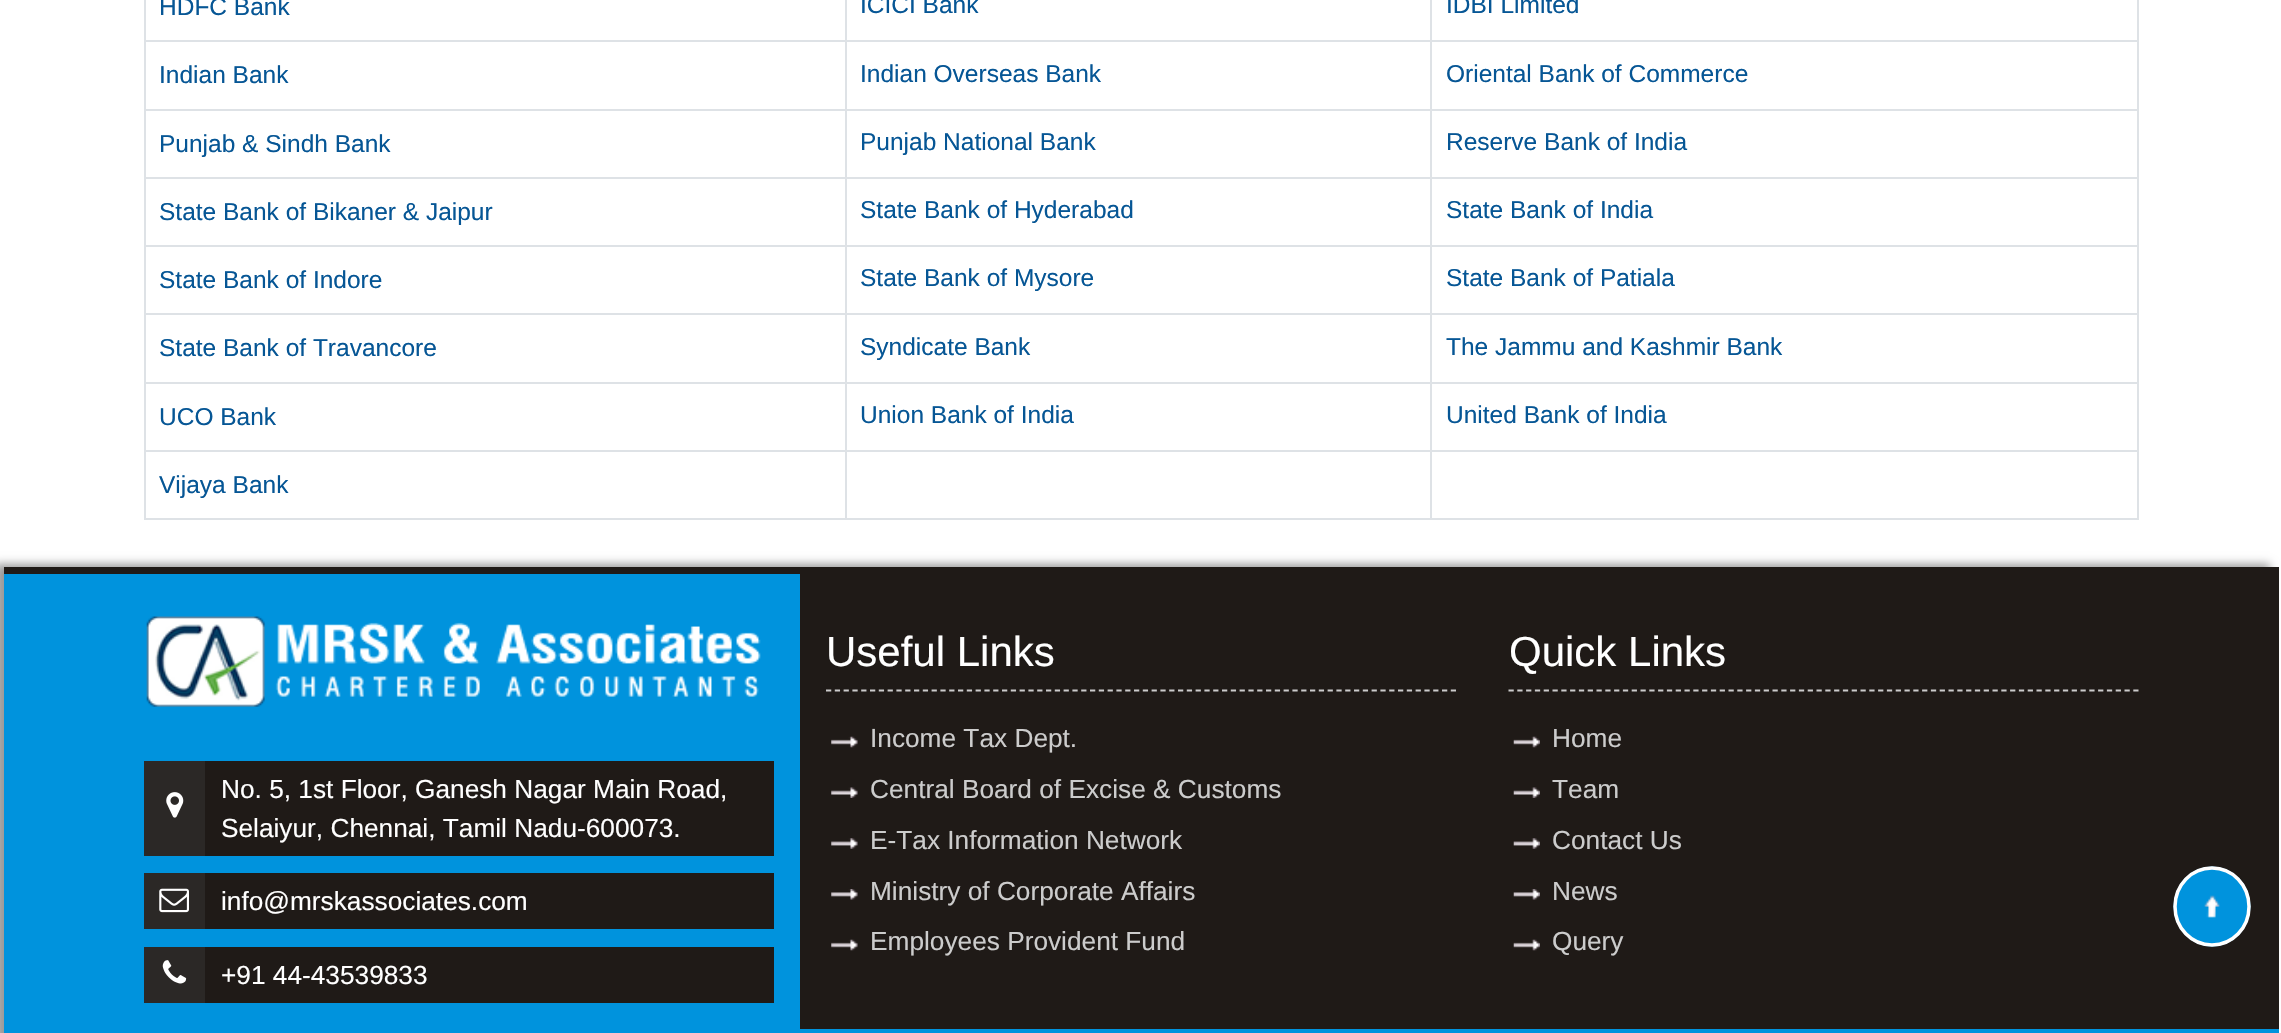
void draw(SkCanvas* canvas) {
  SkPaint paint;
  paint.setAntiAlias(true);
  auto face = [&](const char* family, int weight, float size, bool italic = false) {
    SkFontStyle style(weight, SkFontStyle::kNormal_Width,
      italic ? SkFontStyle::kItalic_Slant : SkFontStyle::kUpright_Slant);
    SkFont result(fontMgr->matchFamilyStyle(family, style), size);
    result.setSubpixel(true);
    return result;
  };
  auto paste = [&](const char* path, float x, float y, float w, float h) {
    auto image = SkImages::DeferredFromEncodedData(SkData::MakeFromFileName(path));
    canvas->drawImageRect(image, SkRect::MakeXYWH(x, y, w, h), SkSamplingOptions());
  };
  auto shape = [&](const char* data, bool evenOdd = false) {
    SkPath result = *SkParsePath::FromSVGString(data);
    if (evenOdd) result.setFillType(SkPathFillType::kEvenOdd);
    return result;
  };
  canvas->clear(0xffffffff);
  {
    const struct { float x, y, w, h; SkColor color; } items[] = {
      {2137, 0, 2, 520, 0xffdee2e6},
      {144, 518, 1995, 2, 0xffdee2e6},
      {144, 0, 2, 520, 0xffdee2e6},
      {1430, 40, 709, 2, 0xffdee2e6},
      {1430, 109, 709, 2, 0xffdee2e6},
      {1430, 177, 709, 2, 0xffdee2e6},
      {1430, 245, 709, 2, 0xffdee2e6},
      {1430, 313, 709, 2, 0xffdee2e6},
      {1430, 382, 709, 2, 0xffdee2e6},
      {1430, 450, 709, 2, 0xffdee2e6},
      {1430, 450, 2, 70, 0xffdee2e6},
      {845, 450, 587, 2, 0xffdee2e6},
      {1430, 382, 2, 70, 0xffdee2e6},
      {845, 382, 587, 2, 0xffdee2e6},
      {1430, 313, 2, 70, 0xffdee2e6},
      {845, 313, 587, 2, 0xffdee2e6},
      {1430, 245, 2, 70, 0xffdee2e6},
      {845, 245, 587, 2, 0xffdee2e6},
      {1430, 177, 2, 70, 0xffdee2e6},
      {845, 177, 587, 2, 0xffdee2e6},
      {1430, 109, 2, 70, 0xffdee2e6},
      {845, 109, 587, 2, 0xffdee2e6},
      {1430, 40, 2, 70, 0xffdee2e6},
      {845, 40, 587, 2, 0xffdee2e6},
      {845, 450, 2, 70, 0xffdee2e6},
      {144, 450, 703, 2, 0xffdee2e6},
      {845, 382, 2, 70, 0xffdee2e6},
      {144, 382, 703, 2, 0xffdee2e6},
      {845, 313, 2, 70, 0xffdee2e6},
      {144, 313, 703, 2, 0xffdee2e6},
      {845, 245, 2, 70, 0xffdee2e6},
      {144, 245, 703, 2, 0xffdee2e6},
      {845, 177, 2, 70, 0xffdee2e6},
      {144, 177, 703, 2, 0xffdee2e6},
      {845, 109, 2, 70, 0xffdee2e6},
      {144, 109, 703, 2, 0xffdee2e6},
      {845, 40, 2, 70, 0xffdee2e6},
      {144, 40, 703, 2, 0xffdee2e6},
      {845, 0, 2, 42, 0xffdee2e6},
      {1430, 0, 2, 42, 0xffdee2e6},
    };
    for (auto [x, y, w, h, color] : items) {
      paint.setColor(color);
      canvas->drawRect(SkRect::MakeXYWH(x, y, w, h), paint);
    }
  }
  paint.setColor(0xff999999);
  paint.setMaskFilter(SkMaskFilter::MakeBlur(kNormal_SkBlurStyle, 4.5f));
  canvas->drawRect(SkRect::MakeXYWH(-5, 564, 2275, 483), paint);
  paint.setMaskFilter(nullptr);
  paint.setColor(0xff1f1a17);
  canvas->drawRect(SkRect::MakeXYWH(4, 567, 2275, 462), paint);
  paint.setColor(0xff0093dd);
  canvas->drawRect(SkRect::MakeXYWH(4, 574, 796, 455), paint);
  paste("img/1.png", 146, 616, 615, 91);
  paint.setColor(0xff1f1a17);
  canvas->drawRect(SkRect::MakeXYWH(205, 761, 569, 95), paint);
  paint.setColor(0xff2b2826);
  canvas->drawRect(SkRect::MakeXYWH(144, 761, 61, 95), paint);
  paste("img/2.png", 166, 792, 18, 26);
  paint.setColor(0xff1f1a17);
  canvas->drawRect(SkRect::MakeXYWH(205, 873, 569, 56), paint);
  paint.setColor(0xff2b2826);
  canvas->drawRect(SkRect::MakeXYWH(144, 873, 61, 56), paint);
  paste("img/3.png", 159, 888, 30, 25);
  paint.setColor(0xff1f1a17);
  canvas->drawRect(SkRect::MakeXYWH(205, 947, 569, 56), paint);
  paint.setColor(0xff2b2826);
  canvas->drawRect(SkRect::MakeXYWH(144, 947, 61, 56), paint);
  paste("img/4.png", 162, 960, 25, 24);
  paint.setStroke(true);
  paint.setStrokeWidth(1.8f);
  paint.setColor(0xffcccccc);
  paint.setPathEffect(SkDashPathEffect::Make({{5.25f, 3.55f}}, 0));
  canvas->drawPath(shape("M826 690.5H1456"), paint);
  paint.setPathEffect(nullptr);
  paste("img/5.png", 831, 736, 27, 12);
  paste("img/6.png", 831, 787, 27, 11);
  paste("img/7.png", 831, 838, 27, 11);
  paste("img/8.png", 831, 889, 27, 11);
  paste("img/5.png", 831, 939, 27, 12);
  paint.setPathEffect(SkDashPathEffect::Make({{5.25f, 3.55f}}, 0));
  canvas->drawPath(shape("M1508.5 690.5H2138.5"), paint);
  paint.setPathEffect(nullptr);
  paste("img/9.png", 1513, 736, 27, 12);
  paste("img/10.png", 1513, 787, 27, 11);
  paste("img/11.png", 1513, 838, 27, 11);
  paste("img/12.png", 1513, 889, 27, 11);
  paste("img/9.png", 1513, 939, 27, 12);
  paint.setStroke(false);
  paint.setColor(0xff0093dd);
  canvas->drawRect(SkRect::MakeXYWH(4, 1029, 2275, 4), paint);
  canvas->drawOval(SkRect::MakeXYWH(2173.5f, 866.5f, 77, 80), paint);
  paint.setStroke(true);
  paint.setStrokeWidth(3.5f);
  paint.setColor(0xffffffff);
  canvas->drawPath(shape("M2212 868C2232.5 868 2249 885 2249 906.5C2249 928 2232.5 945 2212 945C2191.5 945 2175 928 2175 906.5C2175 885 2191.5 868 2212 868Z"), paint);
  paste("img/13.png", 2204, 895, 16, 23);
  auto f0 = face("Liberation Sans", 400, 24.5f);
  paint.setStroke(false);
  paint.setColor(0xff065695);
  {
    const struct { const char* s; float x, y; } items[] = {
      {"HDFC Bank", 159, 15},
      {"ICICI Bank", 860, 13},
      {"IDBI Limited", 1446, 13},
      {"Indian Bank", 159, 83},
      {"Indian Overseas Bank", 860, 82},
      {"Oriental Bank of Commerce", 1446, 82},
      {"Punjab & Sindh Bank", 159, 152},
      {"Punjab National Bank", 860, 150},
      {"Reserve Bank of India", 1446, 150},
      {"State Bank of Bikaner & Jaipur", 159, 220},
      {"State Bank of Hyderabad", 860, 218},
      {"State Bank of India", 1446, 218},
      {"State Bank of Indore", 159, 288},
      {"State Bank of Mysore", 860, 286},
      {"State Bank of Patiala", 1446, 286},
      {"State Bank of Travancore", 159, 356},
      {"Syndicate Bank", 860, 355},
      {"The Jammu and Kashmir Bank", 1446, 355},
      {"UCO Bank", 159, 425},
      {"Union Bank of India", 860, 423},
      {"United Bank of India", 1446, 423},
      {"Vijaya Bank", 159, 493},
    };
    for (auto [s, x, y] : items) {
      canvas->drawString(s, x, y, f0, paint);
    }
  }
  auto f1 = face("Liberation Sans", 400, 26.25f);
  paint.setColor(0xffffffff);
  {
    const struct { const char* s; float x, y; } items[] = {
      {"No. 5, 1st Floor, Ganesh Nagar Main Road,", 221, 798},
      {"Selaiyur, Chennai, Tamil Nadu-600073.", 221, 837},
      {"info@mrskassociates.com", 221, 910},
      {"+91 44-43539833", 221, 984},
    };
    for (auto [s, x, y] : items) {
      canvas->drawString(s, x, y, f1, paint);
    }
  }
  auto f2 = face("Liberation Sans", 400, 42);
  canvas->drawString("Useful Links", 826, 666, f2, paint);
  paint.setColor(0xffcccccc);
  {
    const struct { const char* s; float x, y; } items[] = {
      {"Income Tax Dept.", 870, 747},
      {"Central Board of Excise & Customs", 870, 798},
      {"E-Tax Information Network", 870, 849},
      {"Ministry of Corporate Affairs", 870, 900},
      {"Employees Provident Fund", 870, 950},
    };
    for (auto [s, x, y] : items) {
      canvas->drawString(s, x, y, f1, paint);
    }
  }
  paint.setColor(0xffffffff);
  canvas->drawString("Quick Links", 1509, 666, f2, paint);
  paint.setColor(0xffcccccc);
  {
    const struct { const char* s; float x, y; } items[] = {
      {"Home", 1552, 747},
      {"Team", 1552, 798},
      {"Contact Us", 1552, 849},
      {"News", 1552, 900},
      {"Query", 1552, 950},
    };
    for (auto [s, x, y] : items) {
      canvas->drawString(s, x, y, f1, paint);
    }
  }
}
